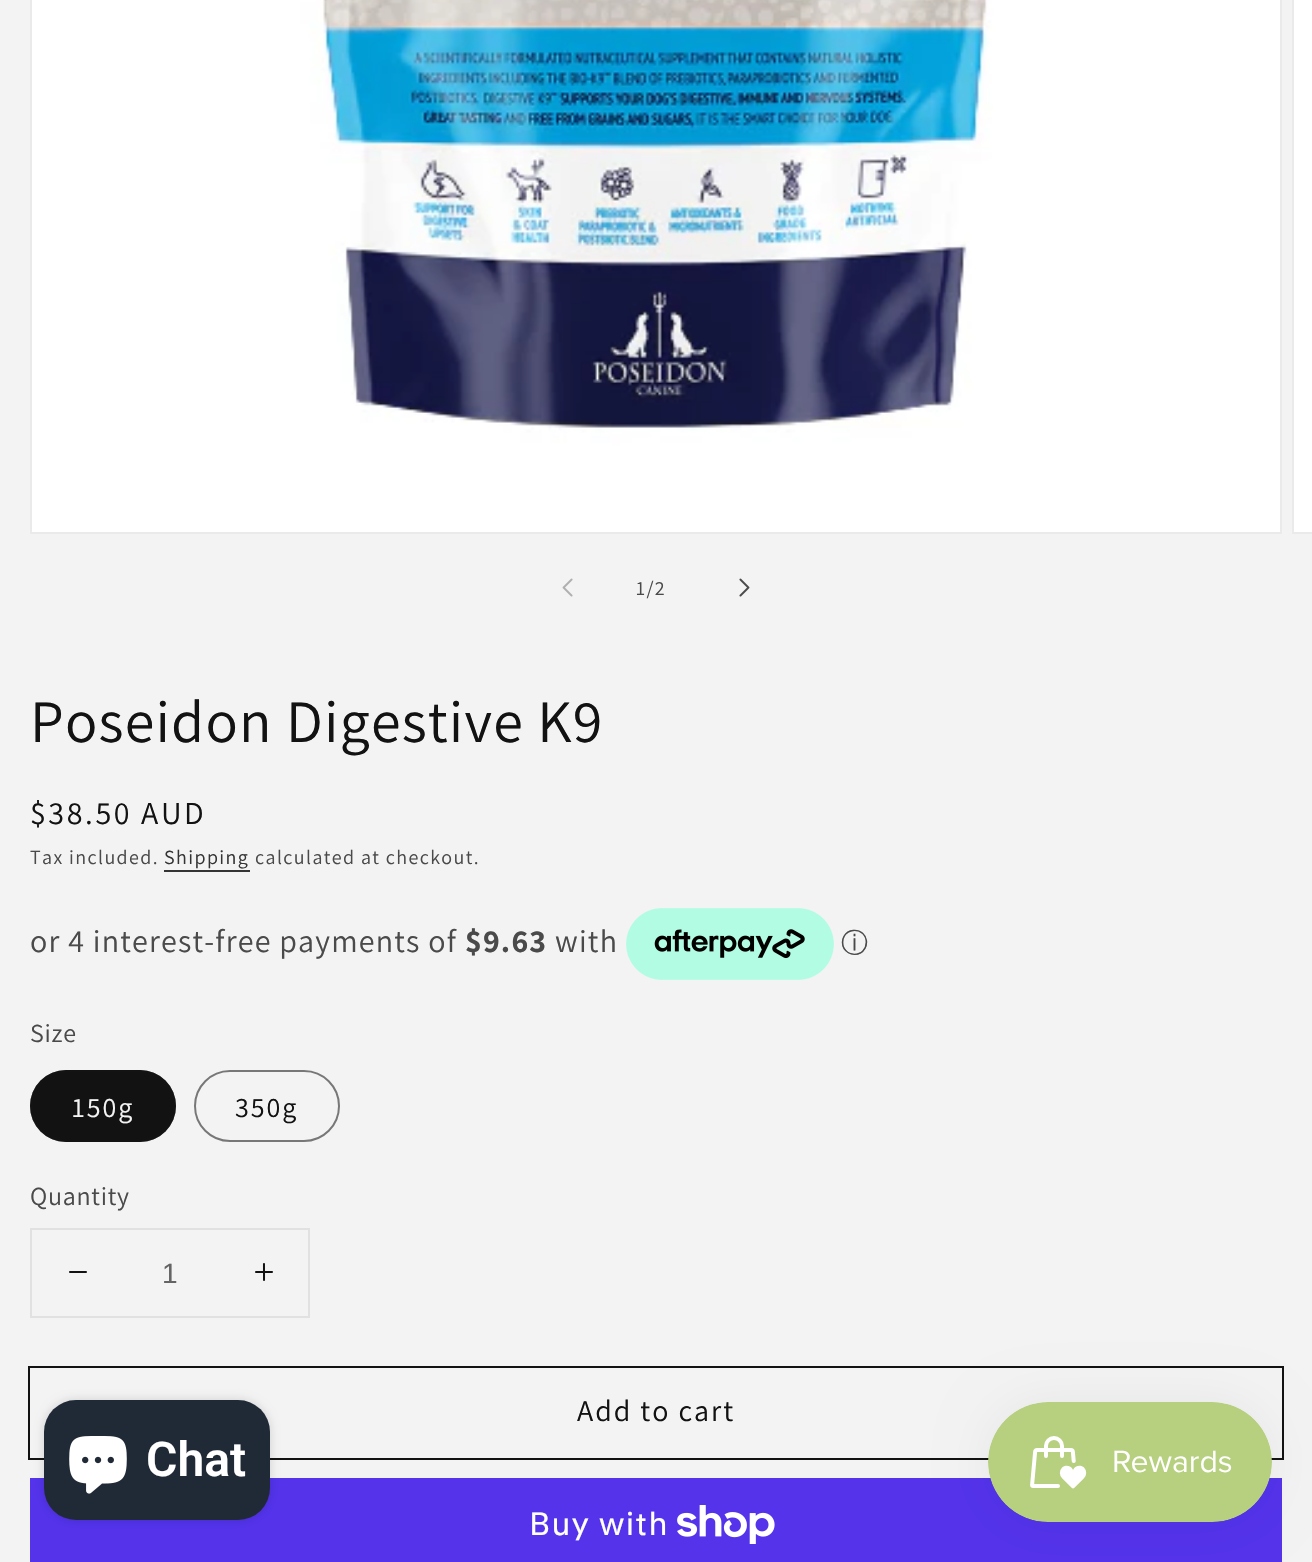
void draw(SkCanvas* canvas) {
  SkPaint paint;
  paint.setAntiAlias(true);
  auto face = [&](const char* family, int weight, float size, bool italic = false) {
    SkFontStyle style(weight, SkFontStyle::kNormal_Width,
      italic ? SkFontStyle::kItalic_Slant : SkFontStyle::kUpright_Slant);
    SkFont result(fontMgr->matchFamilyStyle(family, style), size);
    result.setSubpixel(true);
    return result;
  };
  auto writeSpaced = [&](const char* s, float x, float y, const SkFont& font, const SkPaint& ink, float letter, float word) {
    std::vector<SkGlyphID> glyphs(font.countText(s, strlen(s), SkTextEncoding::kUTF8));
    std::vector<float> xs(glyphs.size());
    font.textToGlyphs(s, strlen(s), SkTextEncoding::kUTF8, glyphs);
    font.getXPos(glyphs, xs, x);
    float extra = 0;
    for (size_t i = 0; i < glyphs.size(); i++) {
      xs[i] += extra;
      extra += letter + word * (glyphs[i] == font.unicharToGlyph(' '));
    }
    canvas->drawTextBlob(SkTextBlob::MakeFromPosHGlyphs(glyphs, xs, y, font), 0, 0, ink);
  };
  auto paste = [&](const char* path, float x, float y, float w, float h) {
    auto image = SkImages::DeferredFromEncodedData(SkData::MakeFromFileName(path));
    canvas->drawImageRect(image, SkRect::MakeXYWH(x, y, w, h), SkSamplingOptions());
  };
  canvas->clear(0xfff3f3f3);
  paint.setStroke(true);
  paint.setStrokeWidth(2);
  paint.setColor(0xffeaeaea);
  canvas->drawRect(SkRect::MakeXYWH(31, -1, 1250, 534), paint);
  paste("img/1.png", 32, 0, 1248, 532);
  canvas->drawRect(SkRect::MakeXYWH(1293, -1, 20, 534), paint);
  paint.setStroke(false);
  paint.setColor(0xffffffff);
  canvas->drawRect(SkRect::MakeXYWH(1294, 0, 18, 532), paint);
  paste("img/2.png", 562, 578, 11, 19);
  paste("img/3.png", 739, 578, 11, 19);
  paint.setColor(0xff343434);
  canvas->drawRect(SkRect::MakeXYWH(164, 870, 86, 2), paint);
  paste("img/4.png", 626, 908, 208, 72);
  paint.setColor(0xff121212);
  canvas->drawRoundRect(SkRect::MakeXYWH(30, 1070, 146, 72), 36, 36, paint);
  paint.setStroke(true);
  paint.setColor(0x8c121212);
  canvas->drawRoundRect(SkRect::MakeXYWH(31, 1071, 144, 70), 35, 35, paint);
  paint.setColor(0xff777777);
  canvas->drawRoundRect(SkRect::MakeXYWH(195, 1071, 144, 70), 35, 35, paint);
  paint.setColor(0xffe1e1e1);
  canvas->drawRect(SkRect::MakeXYWH(31, 1229, 278, 88), paint);
  paste("img/5.png", 69, 1271, 18, 2);
  paste("img/6.png", 255, 1263, 18, 18);
  paint.setColor(0xff121212);
  canvas->drawRect(SkRect::MakeXYWH(29, 1367, 1254, 92), paint);
  paint.setStroke(false);
  paint.setColor(0xff5433eb);
  canvas->drawRect(SkRect::MakeXYWH(30, 1478, 1252, 84), paint);
  paste("img/7.png", 677, 1505, 98, 39);
  paint.setColor(0x0d000000);
  paint.setMaskFilter(SkMaskFilter::MakeBlur(kNormal_SkBlurStyle, 25));
  canvas->drawRoundRect(SkRect::MakeXYWH(988, 1402, 284, 120), 60, 60, paint);
  paint.setMaskFilter(nullptr);
  paste("img/8.png", 988, 1402, 284, 120);
  paint.setColor(0x26000000);
  paint.setMaskFilter(SkMaskFilter::MakeBlur(kNormal_SkBlurStyle, 5));
  canvas->drawRoundRect(SkRect::MakeXYWH(44, 1400, 226, 120), 32, 32, paint);
  paint.setMaskFilter(nullptr);
  paint.setColor(0xff202a36);
  canvas->drawRoundRect(SkRect::MakeXYWH(44, 1400, 226, 120), 32, 32, paint);
  paste("img/9.png", 69, 1436, 58, 58);
  auto f0 = face("Assistant", 400, 20);
  paint.setColor(0xff4a4a4a);
  writeSpaced("1/2", 636, 595, f0, paint, 1.4f, 0);
  auto f1 = face("Assistant", 400, 60);
  paint.setColor(0xff121212);
  writeSpaced("Poseidon Digestive K9", 30, 742, f1, paint, 1.2f, 0);
  auto f2 = face("Assistant", 400, 32);
  writeSpaced("$38.50 AUD", 30, 824, f2, paint, 2.6f, 0);
  paint.setColor(0xff4a4a4a);
  writeSpaced("Tax included.", 30, 864, f0, paint, 1.4f, 0);
  paint.setColor(0xff343434);
  writeSpaced("Shipping", 164, 864, f0, paint, 1.4f, 0);
  paint.setColor(0xff4a4a4a);
  writeSpaced("calculated at checkout.", 255, 864, f0, paint, 1.4f, 0);
  writeSpaced("or 4 interest-free payments of", 30, 952, f2, paint, 1.2f, 0);
  auto f3 = face("Assistant", 700, 32);
  writeSpaced("$9.63", 465, 952, f3, paint, 1.2f, 0);
  writeSpaced("with", 555, 952, f2, paint, 1.2f, 0);
  auto f4 = face("WenQuanYi Zen Hei", 500, 27);
  canvas->drawString("ⓘ", 841, 952, f4, paint);
  auto f5 = face("Assistant", 400, 26);
  writeSpaced("Size", 30, 1042, f5, paint, 0.75f, 0);
  auto f6 = face("Assistant", 400, 28);
  paint.setColor(0xfff3f3f3);
  writeSpaced("150g", 72, 1117, f6, paint, 2, 0);
  paint.setColor(0xff121212);
  writeSpaced("350g", 235, 1117, f6, paint, 2, 0);
  paint.setColor(0xff4a4a4a);
  writeSpaced("Quantity", 30, 1205, f5, paint, 0.75f, 0);
  auto f7 = face("Liberation Sans", 400, 28);
  paint.setColor(0xff646464);
  canvas->drawString("1", 162, 1283, f7, paint);
  auto f8 = face("Assistant", 400, 30);
  paint.setColor(0xff121212);
  writeSpaced("Add to cart", 577, 1421, f8, paint, 2, 0);
  auto f9 = face("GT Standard", 400, 32);
  paint.setColor(0xffffffff);
  writeSpaced("Buy with", 529, 1535, f9, paint, 1.2f, 0);
  auto f10 = face("Roboto", 600, 48);
  canvas->drawString("Chat", 146, 1476, f10, paint);
}
